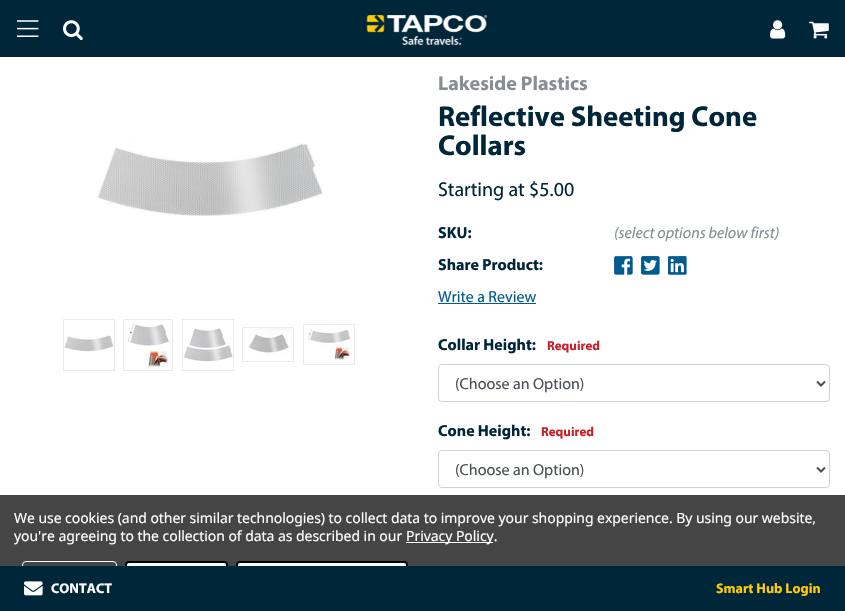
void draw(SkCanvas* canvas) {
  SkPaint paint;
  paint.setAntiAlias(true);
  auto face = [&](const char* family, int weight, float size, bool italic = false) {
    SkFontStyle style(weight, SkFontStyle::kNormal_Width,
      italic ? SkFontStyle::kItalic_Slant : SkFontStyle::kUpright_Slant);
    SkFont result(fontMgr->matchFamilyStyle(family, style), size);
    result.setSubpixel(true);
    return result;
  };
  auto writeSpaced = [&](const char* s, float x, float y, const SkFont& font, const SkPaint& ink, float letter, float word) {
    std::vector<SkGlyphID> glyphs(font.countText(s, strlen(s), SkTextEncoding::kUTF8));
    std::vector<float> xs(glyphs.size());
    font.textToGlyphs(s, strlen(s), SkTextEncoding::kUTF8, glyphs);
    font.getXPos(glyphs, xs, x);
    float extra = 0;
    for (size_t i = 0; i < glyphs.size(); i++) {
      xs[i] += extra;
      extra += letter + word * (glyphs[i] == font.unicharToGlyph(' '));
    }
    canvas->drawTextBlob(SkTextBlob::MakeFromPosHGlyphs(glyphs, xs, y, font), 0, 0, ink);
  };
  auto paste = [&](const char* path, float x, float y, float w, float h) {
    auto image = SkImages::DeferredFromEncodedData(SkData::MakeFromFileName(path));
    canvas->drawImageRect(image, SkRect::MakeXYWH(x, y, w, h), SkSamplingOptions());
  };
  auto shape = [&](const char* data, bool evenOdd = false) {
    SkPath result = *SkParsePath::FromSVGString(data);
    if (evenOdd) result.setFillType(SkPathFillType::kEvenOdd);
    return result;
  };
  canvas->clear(0xffffffff);
  paint.setColor(0xff00263a);
  canvas->drawRect(SkRect::MakeXYWH(0, 0, 845, 57), paint);
  paste("img/1.png", 17, 20, 22, 17);
  paste("img/2.png", 63, 20, 20, 20);
  paste("img/3.png", 366, 15, 121, 30);
  paste("img/4.png", 770, 20, 16, 19);
  paste("img/5.png", 809, 21, 20, 18);
  paste("img/6.png", 97, 143, 226, 73);
  paint.setStroke(true);
  paint.setStrokeWidth(1);
  paint.setColor(0xffe9ecef);
  canvas->drawRect(SkRect::MakeXYWH(63.5f, 319.5f, 51, 51), paint);
  paste("img/7.png", 64, 335, 50, 17);
  canvas->drawRect(SkRect::MakeXYWH(123.5f, 319.5f, 49, 51), paint);
  paste("img/8.png", 125, 321, 46, 47);
  canvas->drawRect(SkRect::MakeXYWH(182.5f, 319.5f, 51, 51), paint);
  paste("img/9.png", 183, 328, 50, 34);
  canvas->drawRect(SkRect::MakeXYWH(242.5f, 327.5f, 51, 34), paint);
  paste("img/10.png", 249, 328, 44, 28);
  canvas->drawRect(SkRect::MakeXYWH(303.5f, 324.5f, 51, 40), paint);
  paste("img/11.png", 306, 326, 46, 37);
  paste("img/12.png", 614, 256, 19, 19);
  paste("img/13.png", 641, 256, 19, 19);
  paste("img/14.png", 667, 256, 20, 19);
  paint.setStroke(false);
  paint.setColor(0xff005b90);
  canvas->drawRect(SkRect::MakeXYWH(438, 303, 98, 1), paint);
  paint.setStroke(true);
  paint.setColor(0xffced4da);
  canvas->drawRoundRect(SkRect::MakeXYWH(438.5f, 364.5f, 391, 37), 3.5f, 3.5f, paint);
  paint.setStrokeWidth(2);
  paint.setColor(0xff495057);
  canvas->drawPath(shape("M817 381.5L821 385.5L825 381.5"), paint);
  paint.setStrokeWidth(1);
  paint.setColor(0xffced4da);
  canvas->drawRoundRect(SkRect::MakeXYWH(438.5f, 450.5f, 391, 37), 3.5f, 3.5f, paint);
  paint.setStrokeWidth(2);
  paint.setColor(0xff495057);
  canvas->drawPath(shape("M817 467.5L821 471.5L825 467.5"), paint);
  paint.setStroke(false);
  paint.setColor(0xff454545);
  canvas->drawRect(SkRect::MakeXYWH(0, 495, 845, 71), paint);
  paint.setColor(0xffffffff);
  canvas->drawRect(SkRect::MakeXYWH(406, 542, 87, 1), paint);
  paint.setStroke(true);
  paint.setStrokeWidth(1);
  canvas->drawRoundRect(SkRect::MakeXYWH(22.5f, 561.5f, 94, 35), 3.5f, 3.5f, paint);
  paint.setStroke(false);
  canvas->drawRoundRect(SkRect::MakeXYWH(126, 562, 101, 34), 3, 3, paint);
  paint.setStroke(true);
  paint.setStrokeWidth(2);
  paint.setColor(0xff000000);
  canvas->drawRoundRect(SkRect::MakeXYWH(126, 562, 101, 34), 3, 3, paint);
  paint.setStroke(false);
  paint.setColor(0xffffffff);
  canvas->drawRoundRect(SkRect::MakeXYWH(237, 562, 170, 34), 3, 3, paint);
  paint.setStroke(true);
  paint.setColor(0xff000000);
  canvas->drawRoundRect(SkRect::MakeXYWH(237, 562, 170, 34), 3, 3, paint);
  paint.setStroke(false);
  paint.setColor(0xff00263a);
  canvas->drawRect(SkRect::MakeXYWH(0, 566, 845, 45), paint);
  paste("img/15.png", 24, 581, 19, 15);
  auto f0 = face("Myriad", 700, 20);
  paint.setColor(0xff868e96);
  canvas->drawString("Lakeside Plastics", 438, 90, f0, paint);
  auto f1 = face("Myriad", 700, 28.75f);
  paint.setColor(0xff00263a);
  canvas->drawString("Reflective Sheeting Cone", 438, 126, f1, paint);
  canvas->drawString("Collars", 438, 155, f1, paint);
  auto f2 = face("Myriad", 400, 20);
  canvas->drawString("Starting at $5.00", 438, 196, f2, paint);
  auto f3 = face("Myriad", 700, 16);
  canvas->drawString("SKU:", 438, 238, f3, paint);
  auto f4 = face("Myriad", 400, 16, true);
  paint.setColor(0xff868e96);
  canvas->drawString("(select options below first)", 614, 238, f4, paint);
  paint.setColor(0xff00263a);
  canvas->drawString("Share Product:", 438, 270, f3, paint);
  auto f5 = face("Myriad", 400, 16);
  paint.setColor(0xff005b90);
  canvas->drawString("Write a Review", 438, 302, f5, paint);
  paint.setColor(0xff00263a);
  canvas->drawString("Collar Height:", 438, 350, f3, paint);
  auto f6 = face("Myriad", 700, 13);
  paint.setColor(0xffc72127);
  canvas->drawString("Required", 547, 350, f6, paint);
  paint.setColor(0xff495057);
  canvas->drawString("(Choose an Option)", 455, 389, f5, paint);
  paint.setColor(0xff00263a);
  canvas->drawString("Cone Height:", 438, 436, f3, paint);
  paint.setColor(0xffc72127);
  canvas->drawString("Required", 541, 436, f6, paint);
  paint.setColor(0xff495057);
  canvas->drawString("(Choose an Option)", 455, 475, f5, paint);
  auto f7 = face("Noto Sans", 400, 14);
  paint.setColor(0xffffffff);
  {
    const struct { const char* s; float x, y; } items[] = {
      {"We use cookies (and other similar technologies) to collect data to improve your shopping experience. By using our website,", 14, 523},
      {"you're agreeing to the collection of data as described in our", 14, 541},
      {"Privacy Policy.", 406, 541},
    };
    for (auto [s, x, y] : items) {
      writeSpaced(s, x, y, f7, paint, -0.05f, 0);
    }
  }
  auto f8 = face("Myriad", 700, 14);
  canvas->drawString("CONTACT", 51, 593, f8, paint);
  paint.setColor(0xffffcb05);
  canvas->drawString("Smart Hub Login", 716, 593, f8, paint);
}
